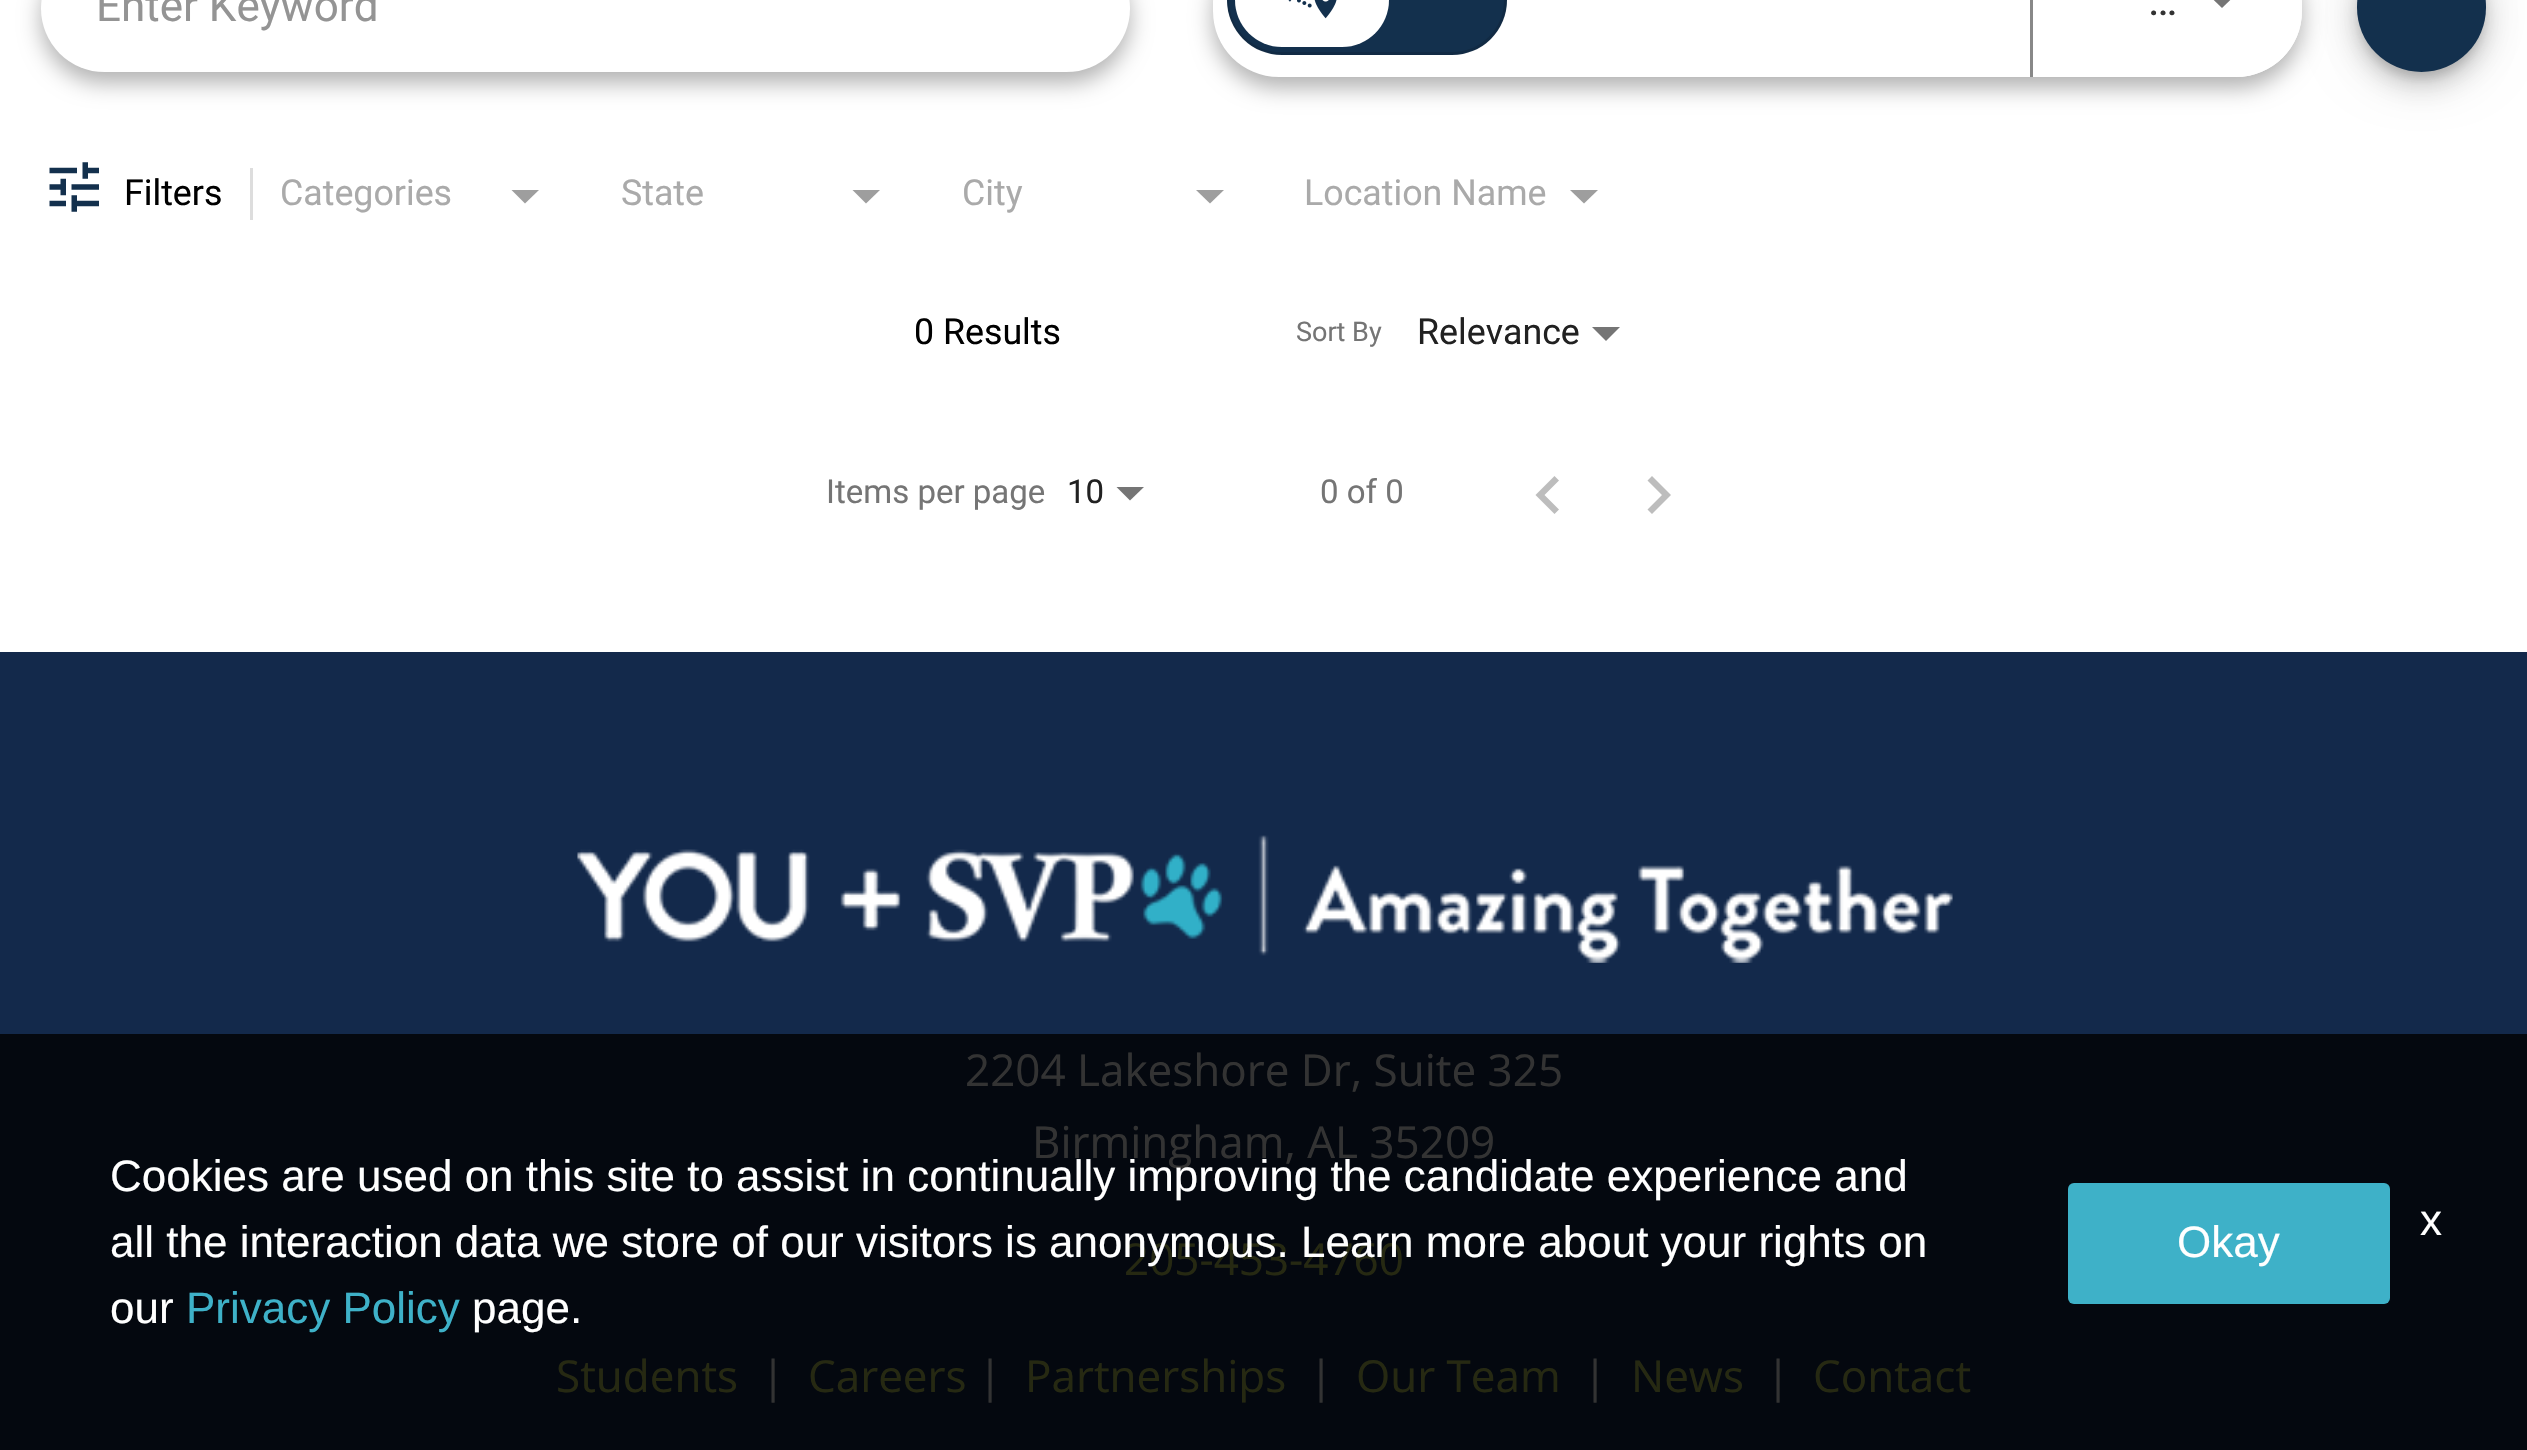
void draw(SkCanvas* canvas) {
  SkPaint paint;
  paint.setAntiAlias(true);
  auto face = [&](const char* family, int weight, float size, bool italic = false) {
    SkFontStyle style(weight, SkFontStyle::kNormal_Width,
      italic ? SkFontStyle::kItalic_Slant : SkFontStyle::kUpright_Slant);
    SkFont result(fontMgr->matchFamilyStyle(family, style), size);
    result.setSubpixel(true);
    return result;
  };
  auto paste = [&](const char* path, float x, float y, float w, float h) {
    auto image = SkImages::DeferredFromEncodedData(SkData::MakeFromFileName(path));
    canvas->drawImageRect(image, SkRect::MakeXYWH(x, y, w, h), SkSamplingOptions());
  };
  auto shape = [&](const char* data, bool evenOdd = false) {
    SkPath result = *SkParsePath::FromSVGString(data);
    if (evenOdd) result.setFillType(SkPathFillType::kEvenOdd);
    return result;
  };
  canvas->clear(0xffffffff);
  paint.setColor(0x4d000000);
  paint.setMaskFilter(SkMaskFilter::MakeBlur(kNormal_SkBlurStyle, 11));
  canvas->drawRoundRect(SkRect::MakeXYWH(41, -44, 1089, 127), 63.5f, 63.5f, paint);
  paint.setMaskFilter(nullptr);
  paint.setColor(0xffffffff);
  canvas->drawRoundRect(SkRect::MakeXYWH(41, -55, 1089, 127), 63.5f, 63.5f, paint);
  canvas->save();
  canvas->clipPath(shape("M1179 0H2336V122H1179ZM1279-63H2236C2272.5-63 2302-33.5 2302 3V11C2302 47.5 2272.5 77 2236 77H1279C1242.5 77 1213 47.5 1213 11V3C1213-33.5 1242.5-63 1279-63Z", true), true);
  paint.setColor(0x4d000000);
  paint.setMaskFilter(SkMaskFilter::MakeBlur(kNormal_SkBlurStyle, 11));
  canvas->drawRoundRect(SkRect::MakeXYWH(1213, -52, 1089, 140), 66, 66, paint);
  paint.setMaskFilter(nullptr);
  canvas->restore();
  paint.setColor(0xff13304d);
  canvas->drawRoundRect(SkRect::MakeXYWH(1227, -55, 280, 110), 55, 55, paint);
  paint.setStroke(true);
  paint.setStrokeWidth(3);
  paint.setColor(0x1f000000);
  canvas->drawRoundRect(SkRect::MakeXYWH(1228.5f, -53.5f, 277, 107), 53.5f, 53.5f, paint);
  paint.setStroke(false);
  paint.setColor(0xff13304d);
  canvas->drawPath(shape("M1281-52H1394V52H1281C1252.5 52 1229 28.5 1229 0C1229-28.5 1252.5-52 1281-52Z"), paint);
  paint.setColor(0xffffffff);
  canvas->drawRoundRect(SkRect::MakeXYWH(1235, -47, 154, 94), 47, 47, paint);
  paste("img/1.png", 1288, 0, 49, 19);
  canvas->drawPath(shape("M2030-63H2236C2272.5-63 2302-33.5 2302 3V11C2302 47.5 2272.5 77 2236 77H2030Z"), paint);
  paint.setColor(0xff888888);
  canvas->drawRect(SkRect::MakeXYWH(2030, 0, 3, 77), paint);
  paint.setColor(0xff757575);
  canvas->drawPath(shape("M2208-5.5H2236L2222 8Z"), paint);
  paint.setColor(0x1f000000);
  paint.setMaskFilter(SkMaskFilter::MakeBlur(kNormal_SkBlurStyle, 25));
  canvas->drawRoundRect(SkRect::MakeXYWH(2357, -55, 129, 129), 64.5f, 64.5f, paint);
  paint.setMaskFilter(nullptr);
  paint.setColor(0x24000000);
  paint.setMaskFilter(SkMaskFilter::MakeBlur(kNormal_SkBlurStyle, 14));
  canvas->drawRoundRect(SkRect::MakeXYWH(2357, -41, 129, 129), 64.5f, 64.5f, paint);
  paint.setMaskFilter(nullptr);
  paint.setColor(0x33000000);
  paint.setMaskFilter(SkMaskFilter::MakeBlur(kNormal_SkBlurStyle, 7));
  canvas->drawRoundRect(SkRect::MakeXYWH(2360, -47, 123, 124), 61.5f, 61.5f, paint);
  paint.setMaskFilter(nullptr);
  paint.setColor(0xff13304d);
  canvas->drawRoundRect(SkRect::MakeXYWH(2357, -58, 129, 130), 64.5f, 64.5f, paint);
  paste("img/2.png", 49, 162, 50, 50);
  paint.setColor(0xffdddddd);
  canvas->drawRect(SkRect::MakeXYWH(250, 168, 3, 52), paint);
  paint.setColor(0xff9e9e9e);
  canvas->drawPath(shape("M511.5 190H539L525 203.5Z"), paint);
  canvas->drawPath(shape("M852.5 190H880L866 203.5Z"), paint);
  canvas->drawPath(shape("M1196 190H1224L1210 203.5Z"), paint);
  canvas->drawPath(shape("M1570 190H1598L1584 203.5Z"), paint);
  paint.setColor(0xff757575);
  canvas->drawPath(shape("M1592 327H1620L1606 341Z"), paint);
  canvas->drawPath(shape("M1116.5 487H1144L1130 500.5Z"), paint);
  paint.setColor(0xffbdbdbd);
  canvas->drawPath(shape("M1559 480.5L1554.5 476L1535.5 495L1554.5 514L1559 509.5L1544.5 495Z"), paint);
  canvas->drawPath(shape("M1652 476L1647.5 480.5L1662 495L1647.5 509.5L1652 514L1671 495Z"), paint);
  paint.setColor(0xff13294b);
  canvas->drawRect(SkRect::MakeXYWH(0, 652, 2527, 382), paint);
  paint.setColor(0xff04080f);
  canvas->drawRect(SkRect::MakeXYWH(0, 1034, 2527, 416), paint);
  paste("img/3.png", 577, 835, 1376, 128);
  paint.setColor(0xff3eb1c8);
  canvas->drawRoundRect(SkRect::MakeXYWH(2068, 1183, 322, 121), 6, 6, paint);
  auto f0 = face("Roboto", 400, 44);
  paint.setColor(0xff949494);
  canvas->drawString("Enter Keyword", 96, 21, f0, paint);
  paint.setColor(0xff333333);
  canvas->drawString("…", 2148, 15, f0, paint);
  auto f1 = face("Roboto", 400, 35.75f);
  paint.setColor(0xff000000);
  canvas->drawString("Filters", 124, 205, f1, paint);
  paint.setColor(0xffaaaaaa);
  {
    const struct { const char* s; float x, y; } items[] = {
      {"Categories", 280, 205},
      {"State", 621, 205},
      {"City", 962, 205},
      {"Location Name", 1304, 205},
    };
    for (auto [s, x, y] : items) {
      canvas->drawString(s, x, y, f1, paint);
    }
  }
  paint.setColor(0xff000000);
  canvas->drawString("0 Results", 914, 344, f1, paint);
  auto f2 = face("Roboto", 400, 27);
  paint.setColor(0xff757575);
  canvas->drawString("Sort By", 1296, 341, f2, paint);
  paint.setColor(0xff212121);
  canvas->drawString("Relevance", 1417, 344, f1, paint);
  auto f3 = face("Roboto", 400, 33);
  paint.setColor(0xff757575);
  canvas->drawString("Items per page", 826, 503, f3, paint);
  paint.setColor(0xff212121);
  canvas->drawString("10", 1067, 503, f3, paint);
  paint.setColor(0xff757575);
  canvas->drawString("0 of 0", 1320, 503, f3, paint);
  auto f4 = face("Open Sans", 400, 44);
  paint.setColor(0xff333333);
  canvas->drawString("2204 Lakeshore Dr, Suite 325", 965, 1086, f4, paint);
  canvas->drawString("Birmingham, AL 35209", 1032, 1158, f4, paint);
  paint.setColor(0xff262912);
  canvas->drawString("205-453-4760", 1124, 1275, f4, paint);
  canvas->drawString("Students", 556, 1392, f4, paint);
  paint.setColor(0xff333333);
  canvas->drawString("|", 761, 1392, f4, paint);
  paint.setColor(0xff262912);
  canvas->drawString("Careers", 808, 1392, f4, paint);
  paint.setColor(0xff333333);
  canvas->drawString("|", 978, 1392, f4, paint);
  paint.setColor(0xff262912);
  canvas->drawString("Partnerships", 1025, 1392, f4, paint);
  paint.setColor(0xff333333);
  canvas->drawString("|", 1309, 1392, f4, paint);
  paint.setColor(0xff262912);
  canvas->drawString("Our Team", 1356, 1392, f4, paint);
  paint.setColor(0xff333333);
  canvas->drawString("|", 1583, 1392, f4, paint);
  paint.setColor(0xff262912);
  canvas->drawString("News", 1631, 1392, f4, paint);
  paint.setColor(0xff333333);
  canvas->drawString("|", 1766, 1392, f4, paint);
  paint.setColor(0xff262912);
  canvas->drawString("Contact", 1813, 1392, f4, paint);
  auto f5 = face("Liberation Sans", 400, 44);
  paint.setColor(0xffffffff);
  {
    const struct { const char* s; float x, y; } items[] = {
      {"Cookies are used on this site to assist in continually improving the candidate experience and", 110, 1191},
      {"all the interaction data we store of our visitors is anonymous. Learn more about your rights on", 110, 1257},
      {"our", 110, 1323},
    };
    for (auto [s, x, y] : items) {
      canvas->drawString(s, x, y, f5, paint);
    }
  }
  paint.setColor(0xff3eb1c8);
  canvas->drawString("Privacy Policy", 186, 1323, f5, paint);
  paint.setColor(0xffffffff);
  {
    const struct { const char* s; float x, y; } items[] = {
      {"page.", 472, 1323},
      {"Okay", 2177, 1257},
      {"x", 2420, 1235},
    };
    for (auto [s, x, y] : items) {
      canvas->drawString(s, x, y, f5, paint);
    }
  }
}
